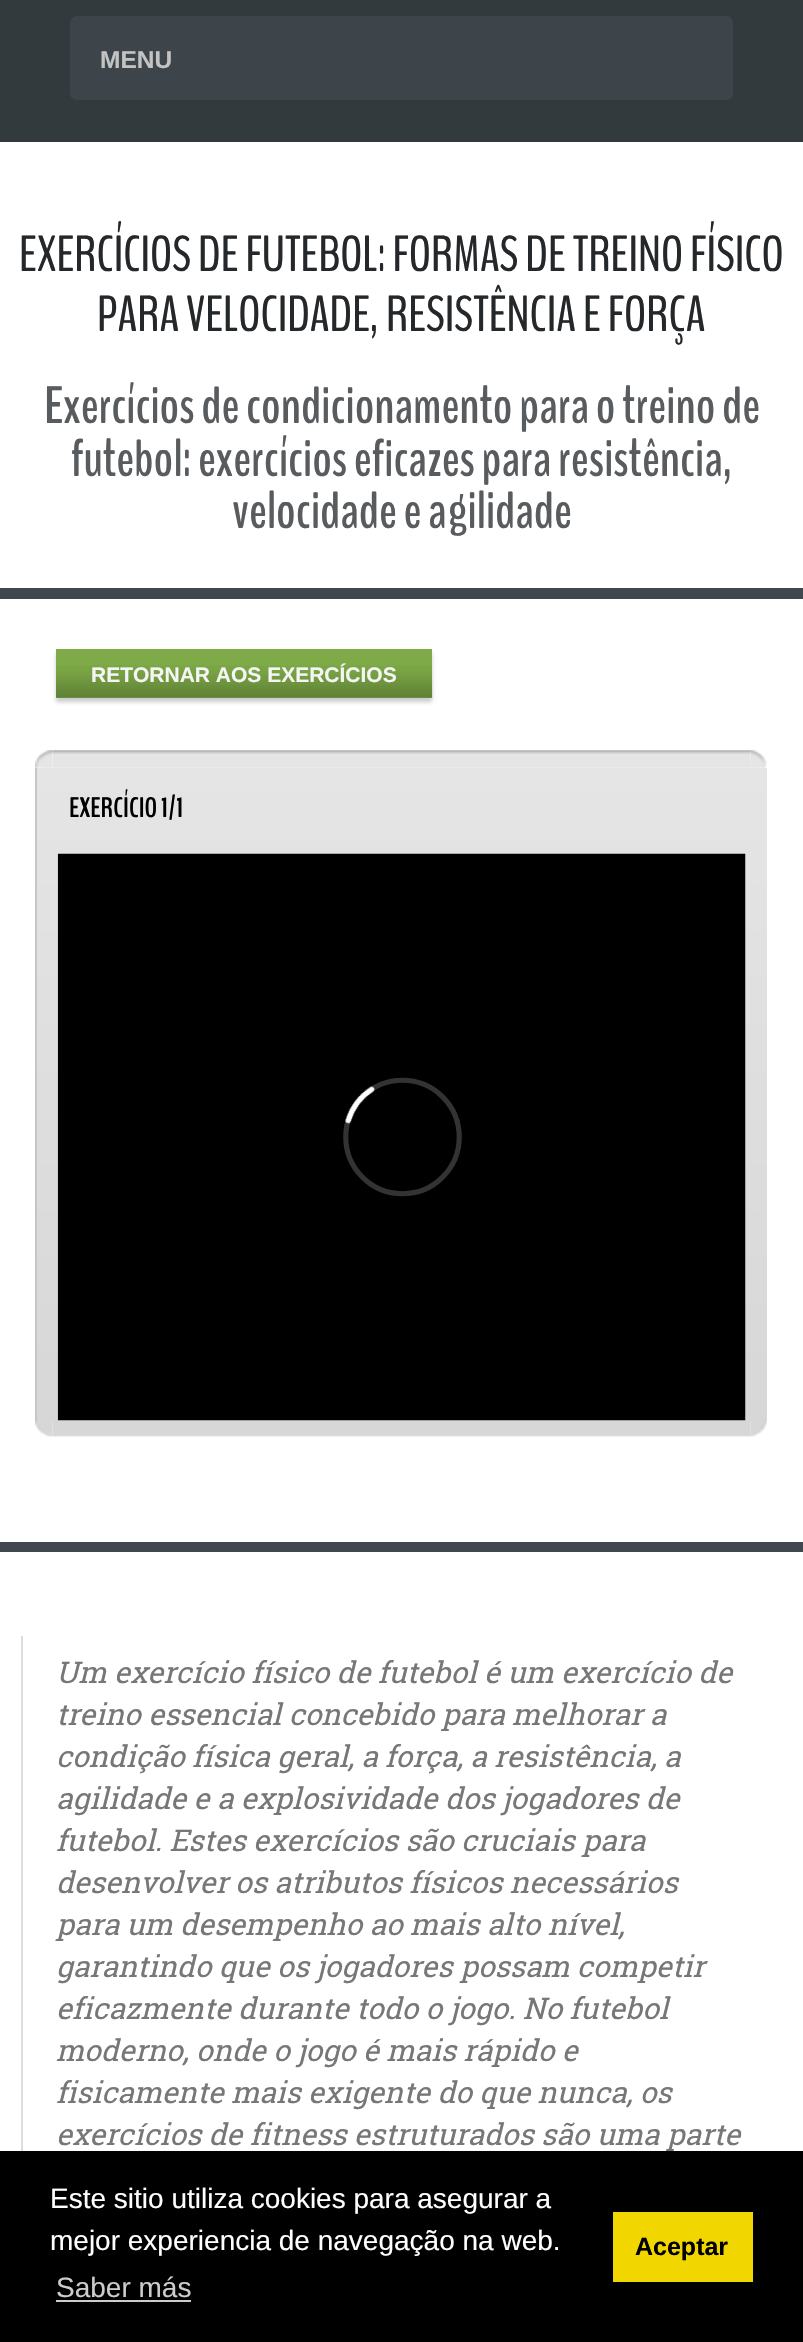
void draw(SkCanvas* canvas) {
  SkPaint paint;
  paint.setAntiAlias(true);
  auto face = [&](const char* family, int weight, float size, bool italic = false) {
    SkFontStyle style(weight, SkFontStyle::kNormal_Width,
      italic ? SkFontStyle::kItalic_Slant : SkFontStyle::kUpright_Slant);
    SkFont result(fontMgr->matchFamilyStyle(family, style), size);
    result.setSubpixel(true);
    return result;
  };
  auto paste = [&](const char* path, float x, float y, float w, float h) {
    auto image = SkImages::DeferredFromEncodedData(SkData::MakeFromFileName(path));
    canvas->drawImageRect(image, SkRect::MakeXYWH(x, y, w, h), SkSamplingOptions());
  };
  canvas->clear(0xff333a3e);
  paint.setColor(0xff3e454a);
  canvas->drawRoundRect(SkRect::MakeXYWH(70, 16, 663, 84), 7, 7, paint);
  {
    const struct { float x, y, w, h; SkColor color; } items[] = {
      {0, 142, 803, 446, 0xffffffff},
      {0, 588, 803, 11, 0xff40474e},
      {0, 599, 803, 943, 0xffffffff},
      {0, 1542, 803, 10, 0xff40474e},
    };
    for (auto [x, y, w, h, color] : items) {
      paint.setColor(color);
      canvas->drawRect(SkRect::MakeXYWH(x, y, w, h), paint);
    }
  }
  paint.setColor(0x33000000);
  paint.setMaskFilter(SkMaskFilter::MakeBlur(kNormal_SkBlurStyle, 2));
  canvas->drawRect(SkRect::MakeXYWH(56, 653, 376, 49), paint);
  paint.setMaskFilter(nullptr);
  paint.setColor(0xff7eab47);
  canvas->drawRect(SkRect::MakeXYWH(56, 649, 376, 49), paint);
  paste("img/1.png", 56, 665, 377, 33);
  paste("img/2.png", 35, 750, 18, 18);
  paste("img/3.png", 750, 750, 17, 18);
  paste("img/4.png", 52, 750, 699, 18);
  {
    const SkColor colors[] = {0xffe5e5e5, 0xffd7d7d7};
    const float stops[] = {0, 1};
    const SkPoint ends[] = {{37, 768}, {37, 1421}};
    paint.setShader(SkGradientShader::MakeLinear(ends, colors, stops, 2, SkTileMode::kClamp));
    paint.setAlpha(255);
  }
  canvas->drawRect(SkRect::MakeXYWH(37, 768, 730, 653), paint);
  paint.setShader(nullptr);
  paint.setColor(0xffc6c6c6);
  canvas->drawRect(SkRect::MakeXYWH(35, 768, 2, 653), paint);
  paste("img/5.png", 57, 853, 689, 568);
  paste("img/6.png", 35, 1421, 18, 16);
  paste("img/7.png", 750, 1420, 17, 17);
  paste("img/8.png", 52, 1421, 699, 16);
  paint.setColor(0xffffffff);
  canvas->drawRect(SkRect::MakeXYWH(0, 1552, 803, 599), paint);
  paint.setColor(0xffdddddd);
  canvas->drawRect(SkRect::MakeXYWH(21, 1636, 2, 515), paint);
  auto f0 = face("Liberation Sans", 700, 24.5f);
  paint.setColor(0xffc3c3c3);
  canvas->drawString("MENU", 100, 68, f0, paint);
  auto f1 = face("BenchNine", 400, 50.5f);
  paint.setColor(0xff25282a);
  canvas->drawString("EXERCÍCIOS DE FUTEBOL: FORMAS DE TREINO FÍSICO", 19, 271, f1, paint);
  canvas->drawString("PARA VELOCIDADE, RESISTÊNCIA E FORÇA", 97, 331, f1, paint);
  auto f2 = face("BenchNine", 700, 52.5f);
  paint.setColor(0xff595c5f);
  {
    const struct { const char* s; float x, y; } items[] = {
      {"Exercícios de condicionamento para o treino de", 44, 423},
      {"futebol: exercícios eficazes para resistência,", 71, 476},
      {"velocidade e agilidade", 232, 528},
    };
    for (auto [s, x, y] : items) {
      canvas->drawString(s, x, y, f2, paint);
    }
  }
  auto f3 = face("Liberation Sans", 700, 21);
  paint.setColor(0xfff5f5f5);
  canvas->drawString("RETORNAR AOS EXERCÍCIOS", 91, 682, f3, paint);
  auto f4 = face("BenchNine", 700, 28);
  paint.setColor(0xff000000);
  canvas->drawString("EXERCÍCIO 1/1", 69, 817, f4, paint);
  auto f5 = face("Roboto Slab", 400, 29.75f, true);
  paint.setColor(0xff777777);
  {
    const struct { const char* s; float x, y; } items[] = {
      {"Um exercício físico de futebol é um exercício de", 56, 1683},
      {"treino essencial concebido para melhorar a", 56, 1725},
      {"condição física geral, a força, a resistência, a", 56, 1767},
      {"agilidade e a explosividade dos jogadores de", 56, 1809},
      {"futebol. Estes exercícios são cruciais para", 56, 1851},
      {"desenvolver os atributos físicos necessários", 56, 1893},
      {"para um desempenho ao mais alto nível,", 56, 1935},
      {"garantindo que os jogadores possam competir", 56, 1977},
      {"eficazmente durante todo o jogo. No futebol", 56, 2019},
      {"moderno, onde o jogo é mais rápido e", 56, 2061},
      {"fisicamente mais exigente do que nunca, os", 56, 2103},
      {"exercícios de fitness estruturados são uma parte", 56, 2145},
    };
    for (auto [s, x, y] : items) {
      canvas->drawString(s, x, y, f5, paint);
    }
  }
  paint.setColor(0xff000000);
  canvas->drawRect(SkRect::MakeXYWH(0, 2151, 803, 191), paint);
  auto f6 = face("Liberation Sans", 400, 28);
  paint.setColor(0xffffffff);
  canvas->drawString("Este sitio utiliza cookies para asegurar a", 50, 2208, f6, paint);
  canvas->drawString("mejor experiencia de navegação na web.", 50, 2250, f6, paint);
  paint.setColor(0xffcccccc);
  canvas->drawString("Saber más", 56, 2297, f6, paint);
  canvas->drawRect(SkRect::MakeXYWH(56, 2300, 135, 2), paint);
  paint.setColor(0xfff1d600);
  canvas->drawRect(SkRect::MakeXYWH(613, 2212, 140, 70), paint);
  auto f7 = face("Liberation Sans", 700, 25);
  paint.setColor(0xff000000);
  canvas->drawString("Aceptar", 635, 2255, f7, paint);
}
